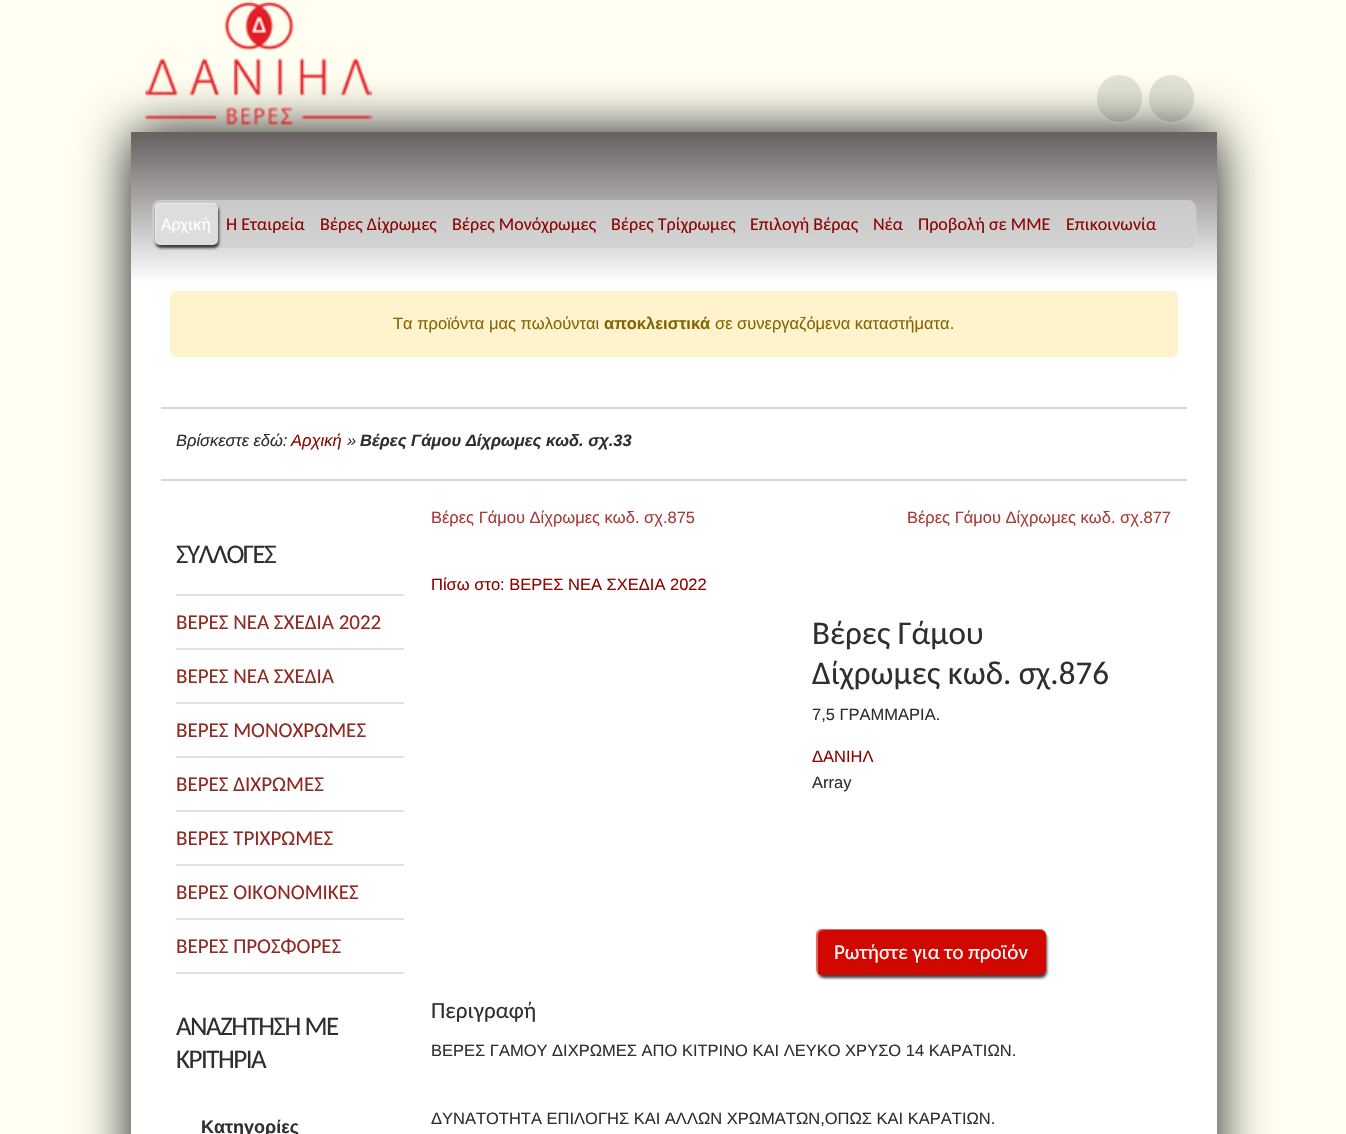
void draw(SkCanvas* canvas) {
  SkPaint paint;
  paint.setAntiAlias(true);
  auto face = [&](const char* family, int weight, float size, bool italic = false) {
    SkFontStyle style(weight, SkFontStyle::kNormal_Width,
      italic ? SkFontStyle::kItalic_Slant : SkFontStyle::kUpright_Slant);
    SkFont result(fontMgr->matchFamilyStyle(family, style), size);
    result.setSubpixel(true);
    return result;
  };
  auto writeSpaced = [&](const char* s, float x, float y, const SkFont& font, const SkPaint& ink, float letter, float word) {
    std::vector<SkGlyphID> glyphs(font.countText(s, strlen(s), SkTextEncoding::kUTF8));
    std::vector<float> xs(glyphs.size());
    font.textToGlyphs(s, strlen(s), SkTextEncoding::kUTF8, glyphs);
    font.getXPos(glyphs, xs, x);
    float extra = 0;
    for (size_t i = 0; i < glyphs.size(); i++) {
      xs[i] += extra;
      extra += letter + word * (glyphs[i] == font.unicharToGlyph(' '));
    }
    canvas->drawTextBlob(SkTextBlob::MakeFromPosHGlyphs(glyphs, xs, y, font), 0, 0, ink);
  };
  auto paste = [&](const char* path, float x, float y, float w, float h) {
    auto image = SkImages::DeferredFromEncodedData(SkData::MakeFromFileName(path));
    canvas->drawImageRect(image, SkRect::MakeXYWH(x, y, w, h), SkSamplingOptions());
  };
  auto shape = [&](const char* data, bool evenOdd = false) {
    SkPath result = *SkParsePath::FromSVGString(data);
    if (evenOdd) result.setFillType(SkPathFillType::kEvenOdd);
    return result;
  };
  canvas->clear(0xfffffef0);
  paint.setColor(0xe6000000);
  paint.setMaskFilter(SkMaskFilter::MakeBlur(kNormal_SkBlurStyle, 26));
  canvas->drawRoundRect(SkRect::MakeXYWH(131, 132, 1086, 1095), 15, 15, paint);
  paint.setMaskFilter(nullptr);
  paste("img/1.png", 145, 1, 228, 124);
  canvas->save();
  canvas->clipPath(shape("M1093 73H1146V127H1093ZM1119.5 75C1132 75 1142 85 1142 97.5V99.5C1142 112 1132 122 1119.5 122C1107 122 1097 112 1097 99.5V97.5C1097 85 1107 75 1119.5 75Z", true), true);
  paint.setColor(0x26ffffff);
  paint.setMaskFilter(SkMaskFilter::MakeBlur(kNormal_SkBlurStyle, 1));
  canvas->drawRoundRect(SkRect::MakeXYWH(1097, 77, 45, 46), 22.5f, 22.5f, paint);
  paint.setMaskFilter(nullptr);
  canvas->restore();
  paint.setColor(0x1a000000);
  canvas->drawRoundRect(SkRect::MakeXYWH(1097, 75, 45, 47), 22.5f, 22.5f, paint);
  canvas->save();
  canvas->clipPath(shape("M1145 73H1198V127H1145ZM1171.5 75C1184 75 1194 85 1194 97.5V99.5C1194 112 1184 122 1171.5 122C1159 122 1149 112 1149 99.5V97.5C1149 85 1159 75 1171.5 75Z", true), true);
  paint.setColor(0x26ffffff);
  paint.setMaskFilter(SkMaskFilter::MakeBlur(kNormal_SkBlurStyle, 1));
  canvas->drawRoundRect(SkRect::MakeXYWH(1149, 77, 45, 46), 22.5f, 22.5f, paint);
  paint.setMaskFilter(nullptr);
  canvas->restore();
  paint.setColor(0x1a000000);
  canvas->drawRoundRect(SkRect::MakeXYWH(1149, 75, 45, 47), 22.5f, 22.5f, paint);
  paint.setColor(0xffffffff);
  canvas->drawRect(SkRect::MakeXYWH(131, 282, 1086, 852), paint);
  {
    const SkColor colors[] = {0xff66605f, 0xffffffff};
    const float stops[] = {0, 1};
    const SkPoint ends[] = {{674, 132}, {674, 282}};
    paint.setShader(SkGradientShader::MakeLinear(ends, colors, stops, 2, SkTileMode::kClamp));
    paint.setAlpha(255);
  }
  canvas->drawRect(SkRect::MakeXYWH(131, 132, 1086, 150), paint);
  paint.setShader(nullptr);
  paint.setColor(0x1affffff);
  canvas->drawPath(shape("M155 246C157 248 159 249 161 249H1189C1193 249 1197 245 1197 241V209C1197 207 1196 205 1194 203C1195 204 1196 206 1196 207V240C1196 244 1192 248 1188 248H159C158 248 156 247 155 246Z"), paint);
  paint.setColor(0xccd1d1d1);
  canvas->drawRoundRect(SkRect::MakeXYWH(152, 200, 1044, 48), 8, 8, paint);
  paint.setColor(0xbf000000);
  paint.setMaskFilter(SkMaskFilter::MakeBlur(kNormal_SkBlurStyle, 1.5f));
  canvas->drawRoundRect(SkRect::MakeXYWH(156, 206, 63, 42), 5, 5, paint);
  paint.setMaskFilter(nullptr);
  paint.setColor(0xffdddddd);
  canvas->drawRoundRect(SkRect::MakeXYWH(155, 203, 63, 42), 5, 5, paint);
  paint.setColor(0x66ffffff);
  canvas->drawPath(shape("M160 204H214L217 205C216 204 214 203 213 203H160C157 203 155 205 155 208V240C155 241 155 242 156 243V214C156 211 155 204 160 204Z"), paint);
  paint.setColor(0xffd7d7d7);
  canvas->drawRect(SkRect::MakeXYWH(161, 407, 1026, 2), paint);
  paint.setColor(0xfffff3cd);
  canvas->drawRoundRect(SkRect::MakeXYWH(170, 291, 1008, 66), 6, 6, paint);
  {
    const struct { float x, y, w, h; SkColor color; } items[] = {
      {161, 479, 1026, 2, 0xffd7d7d7},
      {176, 594, 228, 2, 0xffe1e1e1},
      {176, 648, 228, 2, 0xffe1e1e1},
      {176, 702, 228, 2, 0xffe1e1e1},
      {176, 756, 228, 2, 0xffe1e1e1},
      {176, 810, 228, 2, 0xffe1e1e1},
      {176, 864, 228, 2, 0xffe1e1e1},
      {176, 918, 228, 2, 0xffe1e1e1},
      {176, 972, 228, 2, 0xffe1e1e1},
    };
    for (auto [x, y, w, h, color] : items) {
      paint.setColor(color);
      canvas->drawRect(SkRect::MakeXYWH(x, y, w, h), paint);
    }
  }
  paint.setColor(0xbf000000);
  paint.setMaskFilter(SkMaskFilter::MakeBlur(kNormal_SkBlurStyle, 1.5f));
  canvas->drawRoundRect(SkRect::MakeXYWH(818, 932, 229, 46), 6, 6, paint);
  paint.setMaskFilter(nullptr);
  paint.setColor(0xffd10700);
  canvas->drawRoundRect(SkRect::MakeXYWH(816, 929, 230, 46), 6, 6, paint);
  paint.setColor(0x66ffffff);
  canvas->drawPath(shape("M824 930H1042L1045 932C1044 930 1042 929 1040 929H822C819 929 816 932 816 935V969C816 971 817 973 819 974C818 973 818 972 818 970V936C818 933 820 930 824 930Z"), paint);
  auto f0 = face("Carlito", 400, 18);
  paint.setColor(0xffffffff);
  canvas->drawString("Αρχική", 161, 230, f0, paint);
  paint.setColor(0xff8d0500);
  {
    const struct { const char* s; float x, y; } items[] = {
      {"Η Εταιρεία", 226, 230},
      {"Βέρες Δίχρωμες", 320, 230},
      {"Βέρες Μονόχρωμες", 452, 230},
      {"Βέρες Τρίχρωμες", 611, 230},
      {"Επιλογή Βέρας", 750, 230},
      {"Νέα", 873, 230},
      {"Προβολή σε ΜΜΕ", 918, 230},
      {"Επικοινωνία", 1066, 230},
    };
    for (auto [s, x, y] : items) {
      canvas->drawString(s, x, y, f0, paint);
    }
  }
  auto f1 = face("Liberation Sans", 400, 16.5f);
  paint.setColor(0xff856404);
  canvas->drawString("Τα προϊόντα μας πωλούνται", 393, 329, f1, paint);
  auto f2 = face("Liberation Sans", 700, 16.5f);
  canvas->drawString("αποκλειστικά", 604, 329, f2, paint);
  canvas->drawString("σε συνεργαζόμενα καταστήματα.", 715, 329, f1, paint);
  auto f3 = face("Liberation Sans", 400, 16.5f, true);
  paint.setColor(0xff2f2f2f);
  canvas->drawString("Βρίσκεστε εδώ:", 176, 446, f3, paint);
  paint.setColor(0xff8d0500);
  canvas->drawString("Αρχική", 291, 446, f3, paint);
  paint.setColor(0xff2f2f2f);
  canvas->drawString("»", 347, 446, f3, paint);
  auto f4 = face("Liberation Sans", 700, 16.5f, true);
  canvas->drawString("Βέρες Γάμου Δίχρωμες κωδ. σχ.33", 360, 446, f4, paint);
  auto f5 = face("Carlito", 400, 27);
  writeSpaced("ΣΥΛΛΟΓΕΣ", 176, 563, f5, paint, -1.5f, 0);
  auto f6 = face("Carlito", 400, 21);
  paint.setColor(0xff922922);
  {
    const struct { const char* s; float x, y; } items[] = {
      {"ΒΕΡΕΣ ΝΕΑ ΣΧΕΔΙΑ 2022", 176, 629},
      {"ΒΕΡΕΣ ΝΕΑ ΣΧΕΔΙΑ", 176, 683},
      {"ΒΕΡΕΣ ΜΟΝΟΧΡΩΜΕΣ", 176, 737},
      {"ΒΕΡΕΣ ΔΙΧΡΩΜΕΣ", 176, 791},
      {"ΒΕΡΕΣ ΤΡΙΧΡΩΜΕΣ", 176, 845},
      {"ΒΕΡΕΣ ΟΙΚΟΝΟΜΙΚΕΣ", 176, 899},
      {"ΒΕΡΕΣ ΠΡΟΣΦΟΡΕΣ", 176, 953},
    };
    for (auto [s, x, y] : items) {
      canvas->drawString(s, x, y, f6, paint);
    }
  }
  paint.setColor(0xff2f2f2f);
  writeSpaced("ΑΝΑΖΗΤΗΣΗ ΜΕ", 176, 1035, f5, paint, -1.5f, 0);
  writeSpaced("ΚΡΙΤΗΡΙΑ", 176, 1068, f5, paint, -1.5f, 0);
  auto f7 = face("Liberation Sans", 700, 18);
  canvas->drawString("Κατηγορίες", 201, 1133, f7, paint);
  paint.setColor(0xffa83a36);
  canvas->drawString("Βέρες Γάμου Δίχρωμες κωδ. σχ.875", 431, 523, f1, paint);
  canvas->drawString("Βέρες Γάμου Δίχρωμες κωδ. σχ.877", 907, 523, f1, paint);
  paint.setColor(0xff8d0500);
  canvas->drawString("Πίσω στο: ΒΕΡΕΣ ΝΕΑ ΣΧΕΔΙΑ 2022", 431, 590, f1, paint);
  auto f8 = face("Carlito", 400, 33);
  paint.setColor(0xff2f2f2f);
  canvas->drawString("Βέρες Γάμου", 812, 644, f8, paint);
  canvas->drawString("Δίχρωμες κωδ. σχ.876", 812, 684, f8, paint);
  canvas->drawString("7,5 ΓΡΑΜΜΑΡΙΑ.", 812, 720, f1, paint);
  paint.setColor(0xff8d0500);
  canvas->drawString("ΔΑΝΙΗΛ", 812, 762, f1, paint);
  paint.setColor(0xff2f2f2f);
  canvas->drawString("Array", 812, 788, f1, paint);
  paint.setColor(0xffffffff);
  canvas->drawString("Ρωτήστε για το προϊόν", 834, 959, f6, paint);
  auto f9 = face("Carlito", 400, 23);
  paint.setColor(0xff2f2f2f);
  canvas->drawString("Περιγραφή", 431, 1018, f9, paint);
  canvas->drawString("ΒΕΡΕΣ ΓΑΜΟΥ ΔΙΧΡΩΜΕΣ ΑΠΟ ΚΙΤΡΙΝΟ ΚΑΙ ΛΕΥΚΟ ΧΡΥΣΟ 14 ΚΑΡΑΤΙΩΝ.", 431, 1056, f1, paint);
  canvas->drawString("ΔΥΝΑΤΟΤΗΤΑ ΕΠΙΛΟΓΗΣ ΚΑΙ ΑΛΛΩΝ ΧΡΩΜΑΤΩΝ,ΟΠΩΣ ΚΑΙ ΚΑΡΑΤΙΩΝ.", 431, 1124, f1, paint);
}
